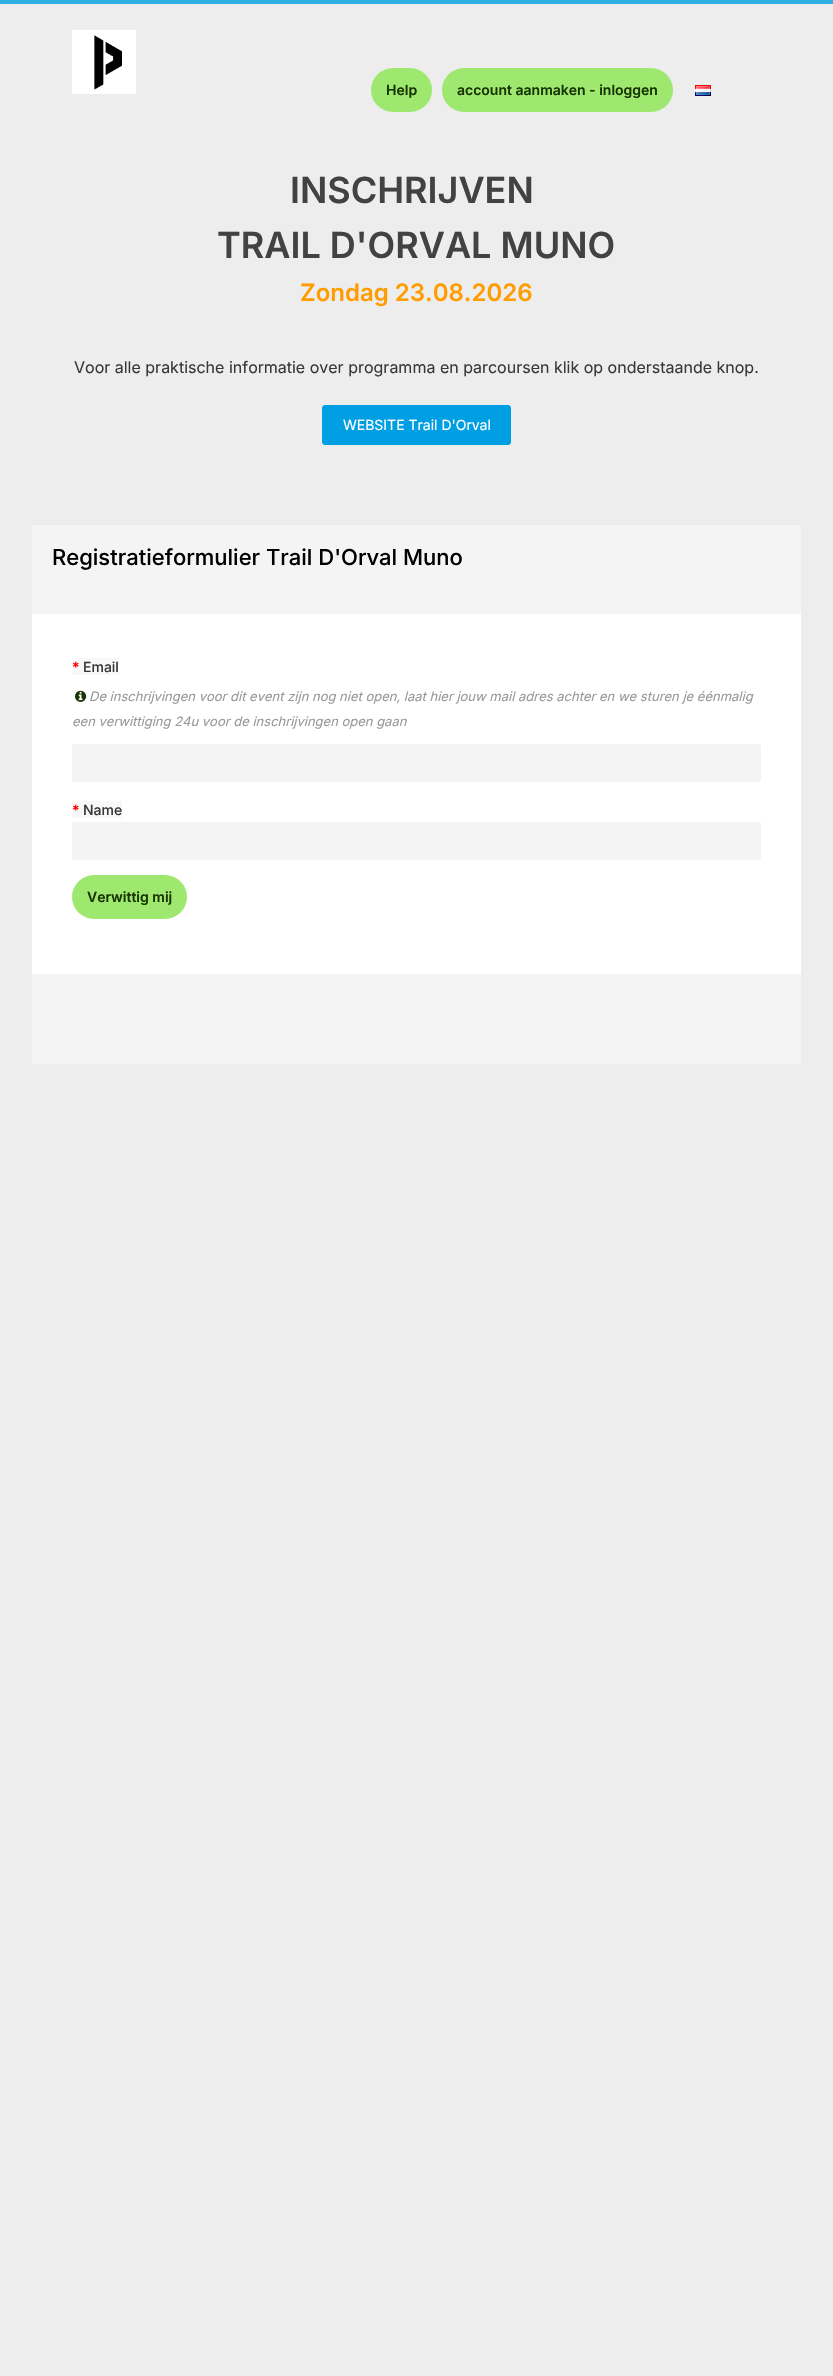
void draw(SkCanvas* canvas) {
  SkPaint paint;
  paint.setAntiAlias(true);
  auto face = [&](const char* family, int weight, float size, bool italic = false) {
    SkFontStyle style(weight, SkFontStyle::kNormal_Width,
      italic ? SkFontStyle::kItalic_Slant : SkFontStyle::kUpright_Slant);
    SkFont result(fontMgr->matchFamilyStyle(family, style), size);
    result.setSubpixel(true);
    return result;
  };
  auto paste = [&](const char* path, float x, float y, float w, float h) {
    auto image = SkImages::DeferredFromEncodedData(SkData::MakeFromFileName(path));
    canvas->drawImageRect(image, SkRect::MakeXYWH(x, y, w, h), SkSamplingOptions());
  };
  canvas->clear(0xffeeeded);
  paint.setColor(0xff30afe5);
  canvas->drawRect(SkRect::MakeXYWH(0, 0, 833, 4), paint);
  paste("img/1.png", 72, 30, 64, 64);
  paint.setColor(0xff9fe870);
  canvas->drawRoundRect(SkRect::MakeXYWH(371, 68, 61, 44), 22, 22, paint);
  canvas->drawRoundRect(SkRect::MakeXYWH(442, 68, 231, 44), 22, 22, paint);
  paste("img/2.png", 695, 85, 16, 11);
  paint.setColor(0xff009fe3);
  canvas->drawRoundRect(SkRect::MakeXYWH(322.5f, 405.5f, 188, 39), 2.5f, 2.5f, paint);
  paint.setStroke(true);
  paint.setStrokeWidth(1);
  canvas->drawRoundRect(SkRect::MakeXYWH(322.5f, 405.5f, 188, 39), 2.5f, 2.5f, paint);
  paint.setStroke(false);
  {
    const struct { float x, y, w, h; SkColor color; } items[] = {
      {32, 525, 769, 89, 0xfff4f4f4},
      {32, 614, 769, 360, 0xffffffff},
      {72, 658, 47, 17, 0xfff8f8f8},
    };
    for (auto [x, y, w, h, color] : items) {
      paint.setColor(color);
      canvas->drawRect(SkRect::MakeXYWH(x, y, w, h), paint);
    }
  }
  paste("img/3.png", 75, 690, 12, 12);
  paint.setColor(0xfff4f4f4);
  canvas->drawRoundRect(SkRect::MakeXYWH(72, 744, 689, 38), 3, 3, paint);
  paint.setColor(0xfff8f8f8);
  canvas->drawRect(SkRect::MakeXYWH(72, 801, 50, 17), paint);
  paint.setColor(0xfff4f4f4);
  canvas->drawRoundRect(SkRect::MakeXYWH(72, 822, 689, 38), 3, 3, paint);
  paint.setColor(0xff9fe870);
  canvas->drawRoundRect(SkRect::MakeXYWH(72, 875, 115, 44), 22, 22, paint);
  paint.setColor(0xfff4f4f4);
  canvas->drawRect(SkRect::MakeXYWH(32, 974, 769, 90), paint);
  auto f0 = face("Inter", 600, 14);
  paint.setColor(0xff163300);
  canvas->drawString("Help", 386, 95, f0, paint);
  canvas->drawString("account aanmaken - inloggen", 457, 95, f0, paint);
  auto f1 = face("Inter", 600, 36);
  paint.setColor(0xff424242);
  canvas->drawString("INSCHRIJVEN", 290, 203, f1, paint);
  canvas->drawString("TRAIL D'ORVAL MUNO", 217, 258, f1, paint);
  auto f2 = face("Inter", 600, 24);
  paint.setColor(0xffff9c00);
  canvas->drawString("Zondag 23.08.2026", 300, 301, f2, paint);
  auto f3 = face("Inter", 400, 16);
  paint.setColor(0xff383838);
  canvas->drawString("Voor alle praktische informatie over programma en parcoursen klik op onderstaande knop.", 74, 373, f3, paint);
  auto f4 = face("Inter", 400, 14);
  paint.setColor(0xffffffff);
  canvas->drawString("WEBSITE Trail D'Orval", 343, 430, f4, paint);
  auto f5 = face("Inter", 500, 22);
  paint.setColor(0xff000000);
  canvas->drawString("Registratieformulier Trail D'Orval Muno", 52, 565, f5, paint);
  paint.setColor(0xffff0000);
  canvas->drawString("*", 72, 672, f0, paint);
  auto f6 = face("Inter", 500, 14);
  paint.setColor(0xff383838);
  canvas->drawString("Email", 83, 672, f6, paint);
  auto f7 = face("Inter", 400, 13, true);
  paint.setColor(0xff999999);
  canvas->drawString("De inschrijvingen voor dit event zijn nog niet open, laat hier jouw mail adres achter en we sturen je éénmalig", 89, 701, f7, paint);
  canvas->drawString("een verwittiging 24u voor de inschrijvingen open gaan", 72, 726, f7, paint);
  paint.setColor(0xffff0000);
  canvas->drawString("*", 72, 815, f0, paint);
  paint.setColor(0xff383838);
  canvas->drawString("Name", 83, 815, f6, paint);
  paint.setColor(0xff163300);
  canvas->drawString("Verwittig mij", 87, 902, f0, paint);
}
